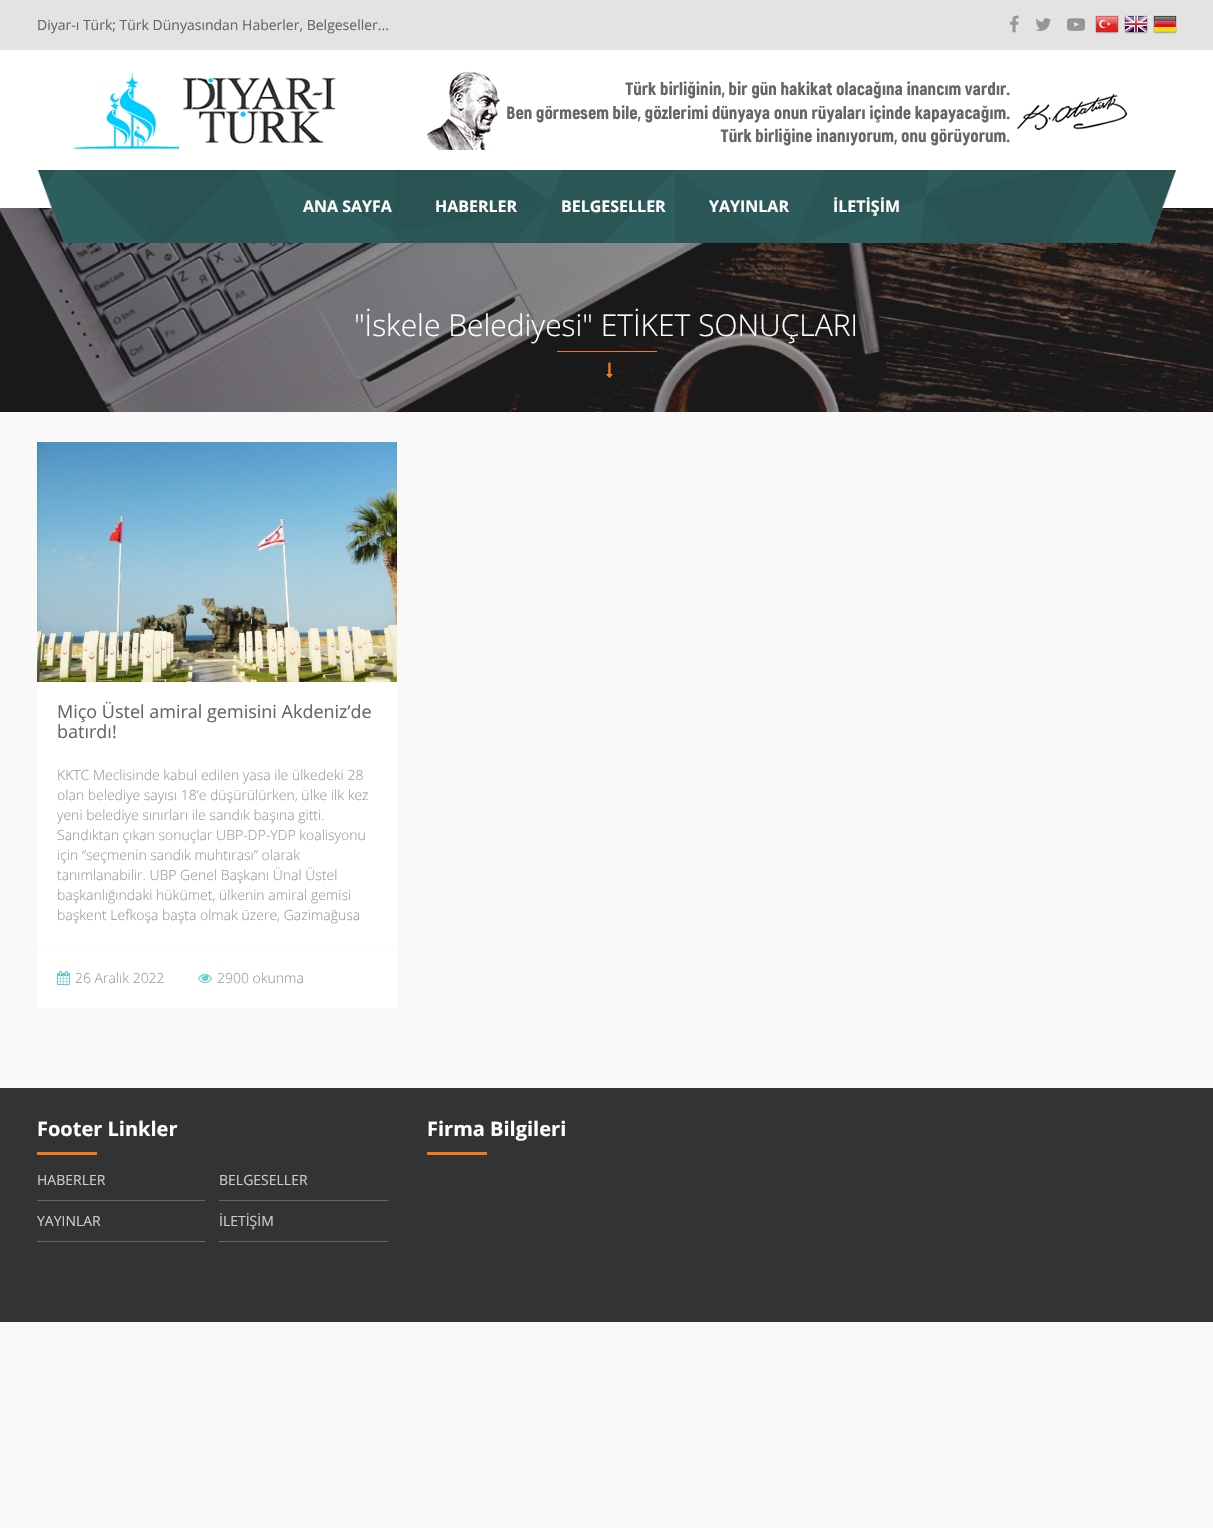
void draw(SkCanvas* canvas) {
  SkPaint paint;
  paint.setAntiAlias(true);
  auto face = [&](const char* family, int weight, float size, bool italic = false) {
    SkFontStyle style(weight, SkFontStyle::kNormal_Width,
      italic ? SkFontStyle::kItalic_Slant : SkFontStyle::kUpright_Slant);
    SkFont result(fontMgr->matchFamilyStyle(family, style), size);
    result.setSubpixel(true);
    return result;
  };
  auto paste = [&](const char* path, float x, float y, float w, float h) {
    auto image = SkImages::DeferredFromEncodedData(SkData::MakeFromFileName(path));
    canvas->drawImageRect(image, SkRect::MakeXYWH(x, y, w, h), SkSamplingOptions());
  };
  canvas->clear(0xfff9f9f9);
  paint.setColor(0xffffffff);
  canvas->drawRect(SkRect::MakeXYWH(0, 50, 1213, 158), paint);
  paint.setColor(0xffe3e3e3);
  canvas->drawRect(SkRect::MakeXYWH(0, 0, 1213, 50), paint);
  paste("img/1.png", 1010, 15, 9, 18);
  paste("img/2.png", 1035, 18, 16, 13);
  paste("img/3.png", 1067, 18, 18, 13);
  paste("img/4.png", 1095, 15, 24, 19);
  paste("img/5.png", 1124, 15, 24, 19);
  paste("img/6.png", 1153, 15, 24, 19);
  paste("img/7.png", 73, 72, 263, 77);
  paste("img/8.png", 427, 71, 700, 79);
  paste("img/10.png", 0, 208, 1213, 204);
  paste("img/9.png", 37, 170, 1140, 73);
  paint.setColor(0xfff17a21);
  canvas->drawRect(SkRect::MakeXYWH(557, 351, 100, 1), paint);
  paste("img/11.png", 606, 362, 7, 16);
  paint.setColor(0xffffffff);
  canvas->drawRect(SkRect::MakeXYWH(37, 682, 360, 326), paint);
  paste("img/12.png", 37, 442, 360, 240);
  paint.setColor(0xfff9f9f9);
  canvas->drawRect(SkRect::MakeXYWH(37, 947, 360, 1), paint);
  paste("img/13.png", 57, 971, 13, 14);
  paste("img/14.png", 198, 974, 14, 9);
  {
    const struct { float x, y, w, h; SkColor color; } items[] = {
      {0, 1088, 1213, 234, 0xff333333},
      {37, 1152, 60, 3, 0xfff17a21},
      {37, 1200, 168, 1, 0xff666666},
      {219, 1200, 169, 1, 0xff666666},
      {37, 1241, 168, 1, 0xff666666},
      {219, 1241, 169, 1, 0xff666666},
      {427, 1152, 60, 3, 0xfff17a21},
    };
    for (auto [x, y, w, h, color] : items) {
      paint.setColor(color);
      canvas->drawRect(SkRect::MakeXYWH(x, y, w, h), paint);
    }
  }
  auto f0 = face("Open Sans", 400, 14);
  paint.setColor(0xff666666);
  canvas->drawString("Diyar-ı Türk; Türk Dünyasından Haberler, Belgeseller...", 37, 30, f0, paint);
  auto f1 = face("Open Sans", 700, 16);
  paint.setColor(0xffffffff);
  {
    const struct { const char* s; float x, y; } items[] = {
      {"ANA SAYFA", 303, 212},
      {"HABERLER", 435, 212},
      {"BELGESELLER", 561, 212},
      {"YAYINLAR", 709, 212},
      {"İLETİŞİM", 833, 212},
    };
    for (auto [s, x, y] : items) {
      canvas->drawString(s, x, y, f1, paint);
    }
  }
  auto f2 = face("Open Sans", 300, 30);
  canvas->drawString("\"İskele Belediyesi\" ETİKET SONUÇLARI", 354, 336, f2, paint);
  auto f3 = face("Open Sans", 400, 18);
  paint.setColor(0xff666666);
  canvas->drawString("Miço Üstel amiral gemisini Akdeniz’de", 57, 718, f3, paint);
  canvas->drawString("batırdı!", 57, 738, f3, paint);
  auto f4 = face("Open Sans", 300, 14);
  paint.setColor(0xff999999);
  canvas->drawString("KKTC Meclisinde kabul edilen yasa ile ülkedeki 28", 57, 780, f4, paint);
  canvas->drawString("olan belediye sayısı 18’e düşürülürken, ülke ilk kez", 57, 800, f4, paint);
  canvas->save();
  canvas->clipRect(SkRect::MakeXYWH(57, 702, 320, 225));
  canvas->drawString("yeni belediye sınırları ile sandık başına gitti.", 57, 820, f4, paint);
  canvas->restore();
  {
    const struct { const char* s; float x, y; } items[] = {
      {"Sandıktan çıkan sonuçlar UBP-DP-YDP koalisyonu", 57, 840},
      {"için “seçmenin sandık muhtırası” olarak", 57, 860},
      {"tanımlanabilir. UBP Genel Başkanı Ünal Üstel", 57, 880},
      {"başkanlığındaki hükümet, ülkenin amiral gemisi", 57, 900},
      {"başkent Lefkoşa başta olmak üzere, Gazimağusa", 57, 920},
      {"26 Aralık 2022", 75, 983},
      {"2900 okunma", 217, 983},
    };
    for (auto [s, x, y] : items) {
      canvas->drawString(s, x, y, f4, paint);
    }
  }
  auto f5 = face("Open Sans", 700, 20);
  paint.setColor(0xffffffff);
  canvas->drawString("Footer Linkler", 37, 1136, f5, paint);
  paint.setColor(0xffcccccc);
  {
    const struct { const char* s; float x, y; } items[] = {
      {"HABERLER", 37, 1185},
      {"BELGESELLER", 219, 1185},
      {"YAYINLAR", 37, 1226},
      {"İLETİŞİM", 219, 1226},
    };
    for (auto [s, x, y] : items) {
      canvas->drawString(s, x, y, f0, paint);
    }
  }
  paint.setColor(0xffffffff);
  canvas->drawString("Firma Bilgileri", 427, 1136, f5, paint);
}
